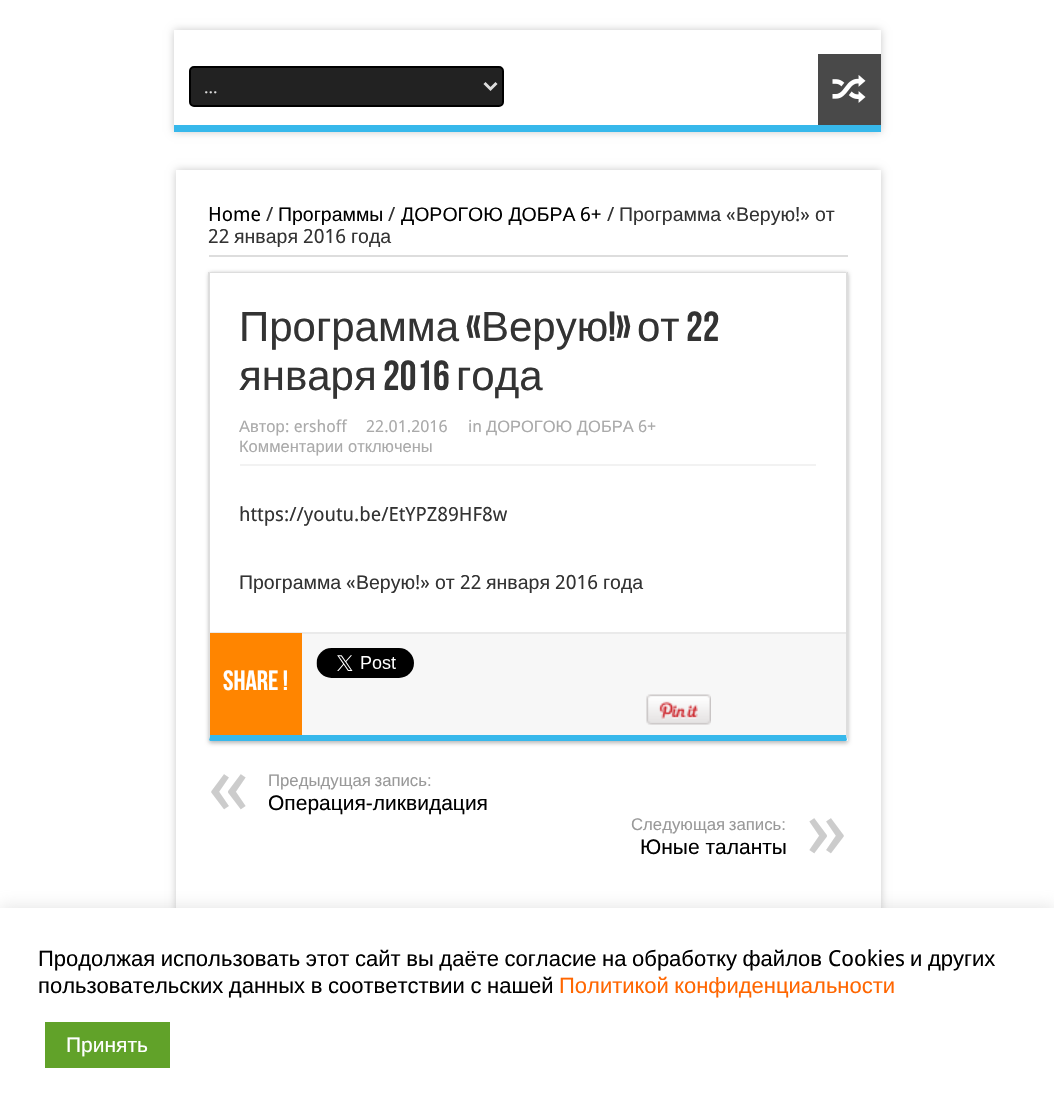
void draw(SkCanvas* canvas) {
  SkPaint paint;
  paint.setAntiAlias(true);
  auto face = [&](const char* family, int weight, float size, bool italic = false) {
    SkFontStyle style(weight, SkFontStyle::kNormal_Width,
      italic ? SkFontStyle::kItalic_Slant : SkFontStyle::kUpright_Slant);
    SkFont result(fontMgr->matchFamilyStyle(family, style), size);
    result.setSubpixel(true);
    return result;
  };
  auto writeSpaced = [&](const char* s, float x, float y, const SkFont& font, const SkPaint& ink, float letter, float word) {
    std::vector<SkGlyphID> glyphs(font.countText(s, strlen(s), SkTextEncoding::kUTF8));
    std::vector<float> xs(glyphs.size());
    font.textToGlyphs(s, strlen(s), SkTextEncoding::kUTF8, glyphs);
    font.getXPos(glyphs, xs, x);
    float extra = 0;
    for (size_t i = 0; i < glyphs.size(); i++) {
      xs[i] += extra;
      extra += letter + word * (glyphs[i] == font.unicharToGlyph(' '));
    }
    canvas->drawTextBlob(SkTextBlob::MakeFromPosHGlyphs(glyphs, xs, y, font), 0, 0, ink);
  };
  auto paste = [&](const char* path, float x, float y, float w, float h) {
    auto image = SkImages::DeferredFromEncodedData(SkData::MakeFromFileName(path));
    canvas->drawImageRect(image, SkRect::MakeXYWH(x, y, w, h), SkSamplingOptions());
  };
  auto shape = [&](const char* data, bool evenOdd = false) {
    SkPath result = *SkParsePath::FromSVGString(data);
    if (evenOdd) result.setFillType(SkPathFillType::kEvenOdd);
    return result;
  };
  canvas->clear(0xffffffff);
  paint.setColor(0xffcacaca);
  paint.setMaskFilter(SkMaskFilter::MakeBlur(kNormal_SkBlurStyle, 4));
  canvas->drawRect(SkRect::MakeXYWH(174, 30, 707, 102), paint);
  paint.setMaskFilter(nullptr);
  paint.setColor(0xffffffff);
  canvas->drawRect(SkRect::MakeXYWH(174, 30, 707, 95), paint);
  paint.setColor(0xff37b8eb);
  canvas->drawRect(SkRect::MakeXYWH(174, 125, 707, 7), paint);
  paint.setColor(0xff222222);
  canvas->drawRoundRect(SkRect::MakeXYWH(190, 67, 313, 39), 4, 4, paint);
  paint.setStroke(true);
  paint.setStrokeWidth(2);
  paint.setColor(0xff000000);
  canvas->drawRoundRect(SkRect::MakeXYWH(190, 67, 313, 39), 4, 4, paint);
  paint.setStrokeWidth(3);
  paint.setColor(0xffdddddd);
  canvas->drawPath(shape("M484.5 83L490.5 89L496.5 83"), paint);
  paint.setStroke(false);
  paint.setColor(0xff494949);
  canvas->drawRect(SkRect::MakeXYWH(818, 54, 63, 71), paint);
  paste("img/1.png", 832, 75, 34, 28);
  paint.setColor(0xffcacaca);
  paint.setMaskFilter(SkMaskFilter::MakeBlur(kNormal_SkBlurStyle, 4));
  canvas->drawRect(SkRect::MakeXYWH(176, 170, 705, 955), paint);
  paint.setMaskFilter(nullptr);
  paint.setColor(0xffffffff);
  canvas->drawRect(SkRect::MakeXYWH(176, 170, 705, 738), paint);
  paint.setColor(0xffdddddd);
  canvas->drawRect(SkRect::MakeXYWH(209, 255, 639, 2), paint);
  canvas->save();
  canvas->clipPath(shape("M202 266H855V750H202ZM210.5 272H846.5C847.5 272 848 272.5 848 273.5V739.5C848 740.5 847.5 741 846.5 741H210.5C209.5 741 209 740.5 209 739.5V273.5C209 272.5 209.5 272 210.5 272Z", true), true);
  paint.setColor(0xffb5b5b5);
  paint.setMaskFilter(SkMaskFilter::MakeBlur(kNormal_SkBlurStyle, 2));
  canvas->drawRoundRect(SkRect::MakeXYWH(209, 273, 639, 470), 1.5f, 1.5f, paint);
  paint.setMaskFilter(nullptr);
  canvas->restore();
  paint.setColor(0xffdddddd);
  canvas->drawPath(shape("M210 272H209L210 273H846L847 272H846Z"), paint);
  canvas->drawPath(shape("M848 740L846 735V273L847 272H848Z"), paint);
  paint.setColor(0xff37b8eb);
  canvas->drawPath(shape("M210 741H846L847 740L846 735H210L209 740Z"), paint);
  paint.setColor(0xffdddddd);
  canvas->drawPath(shape("M210 273V735L209 740L208 272H209Z"), paint);
  {
    const struct { float x, y, w, h; SkColor color; } items[] = {
      {240, 464, 576, 2, 0xfff2f2f2},
      {302, 634, 544, 101, 0xfff7f7f7},
      {210, 632, 636, 2, 0xffeaeaea},
      {210, 633, 92, 102, 0xffff8500},
    };
    for (auto [x, y, w, h, color] : items) {
      paint.setColor(color);
      canvas->drawRect(SkRect::MakeXYWH(x, y, w, h), paint);
    }
  }
  paste("img/2.png", 316, 648, 98, 30);
  paste("img/3.png", 646, 694, 65, 31);
  paint.setColor(0x4dacabab);
  paint.setMaskFilter(SkMaskFilter::MakeBlur(kNormal_SkBlurStyle, 7.5f));
  canvas->drawRect(SkRect::MakeXYWH(0, 906, 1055, 206), paint);
  paint.setMaskFilter(nullptr);
  paint.setColor(0xffffffff);
  canvas->drawRect(SkRect::MakeXYWH(0, 908, 1054, 205), paint);
  paint.setColor(0xff61a229);
  canvas->drawRect(SkRect::MakeXYWH(45, 1022, 125, 46), paint);
  auto f0 = face("Liberation Serif", 400, 18);
  paint.setColor(0xffdddddd);
  canvas->drawString("...", 204, 93, f0, paint);
  auto f1 = face("Droid Sans", 400, 19.5f);
  paint.setColor(0xff000000);
  canvas->drawString("Home", 208, 221, f1, paint);
  paint.setColor(0xff333333);
  canvas->drawString("/", 266, 221, f1, paint);
  auto f2 = face("Liberation Sans", 400, 19.5f);
  paint.setColor(0xff000000);
  canvas->drawString("Программы", 278, 221, f2, paint);
  paint.setColor(0xff333333);
  canvas->drawString("/", 388, 221, f1, paint);
  paint.setColor(0xff000000);
  canvas->drawString("ДОРОГОЮ ДОБРА", 401, 221, f2, paint);
  canvas->drawString("6+", 580, 221, f1, paint);
  paint.setColor(0xff333333);
  canvas->drawString("/", 607, 221, f1, paint);
  canvas->drawString("Программа", 619, 221, f2, paint);
  canvas->drawString("«", 726, 221, f1, paint);
  canvas->drawString("Верую", 736, 221, f2, paint);
  canvas->drawString("!»", 795, 221, f1, paint);
  canvas->drawString("от", 815, 221, f2, paint);
  canvas->drawString("22", 208, 243, f1, paint);
  canvas->drawString("января", 234, 243, f2, paint);
  canvas->drawString("2016", 303, 243, f1, paint);
  canvas->drawString("года", 351, 243, f2, paint);
  auto f3 = face("Liberation Sans", 400, 42);
  canvas->drawString("Программа", 239, 341, f3, paint);
  auto f4 = face("Bebas Neue", 400, 42);
  canvas->drawString("«", 466, 341, f4, paint);
  canvas->drawString("Верую", 481, 341, f3, paint);
  canvas->drawString("!»", 608, 341, f4, paint);
  canvas->drawString("от", 637, 341, f3, paint);
  canvas->drawString("22", 686, 341, f4, paint);
  canvas->drawString("января", 239, 390, f3, paint);
  canvas->drawString("2016", 383, 390, f4, paint);
  canvas->drawString("года", 456, 390, f3, paint);
  auto f5 = face("Liberation Sans", 400, 16.5f);
  paint.setColor(0xffaaaaaa);
  canvas->drawString("Автор", 239, 432, f5, paint);
  auto f6 = face("Droid Sans", 400, 16.5f);
  {
    const struct { const char* s; float x, y; } items[] = {
      {": ershoff", 285, 432},
      {"22.01.2016", 366, 432},
      {"in", 468, 432},
    };
    for (auto [s, x, y] : items) {
      canvas->drawString(s, x, y, f6, paint);
    }
  }
  canvas->drawString("ДОРОГОЮ ДОБРА", 486, 432, f5, paint);
  canvas->drawString("6+", 638, 432, f6, paint);
  canvas->drawString("Комментарии", 239, 452, f5, paint);
  canvas->drawString("отключены", 348, 452, f5, paint);
  paint.setColor(0xff333333);
  canvas->drawString("https://youtu.be/EtYPZ89HF8w", 239, 521, f1, paint);
  canvas->drawString("Программа", 239, 589, f2, paint);
  canvas->drawString("«", 346, 589, f1, paint);
  canvas->drawString("Верую", 356, 589, f2, paint);
  canvas->drawString("!»", 415, 589, f1, paint);
  canvas->drawString("от", 435, 589, f2, paint);
  canvas->drawString("22", 460, 589, f1, paint);
  canvas->drawString("января", 486, 589, f2, paint);
  canvas->drawString("2016", 555, 589, f1, paint);
  canvas->drawString("года", 603, 589, f2, paint);
  auto f7 = face("Bebas Neue", 400, 28);
  paint.setColor(0xffffffff);
  canvas->drawString("Share !", 223, 690, f7, paint);
  auto f8 = face("Droid Sans", 400, 84);
  paint.setColor(0xffcccccc);
  canvas->drawString("«", 208, 814, f8, paint);
  auto f9 = face("Liberation Sans", 400, 16.75f);
  paint.setColor(0xff999999);
  writeSpaced("Предыдущая запись:", 268, 786, f9, paint, 0, -1);
  auto f10 = face("Liberation Sans", 400, 21);
  paint.setColor(0xff000000);
  canvas->drawString("Операция-ликвидация", 268, 810, f10, paint);
  paint.setColor(0xff999999);
  writeSpaced("Следующая запись:", 631, 830, f9, paint, 0, -1);
  paint.setColor(0xffcccccc);
  canvas->drawString("»", 806, 858, f8, paint);
  paint.setColor(0xff000000);
  canvas->drawString("Юные таланты", 640, 854, f10, paint);
  auto f11 = face("Liberation Sans", 400, 22);
  writeSpaced("Продолжая использовать этот сайт вы даёте согласие на обработку файлов", 38, 966, f11, paint, 0, -0.5f);
  auto f12 = face("Droid Sans", 400, 22);
  canvas->drawString("Cookies", 828, 966, f12, paint);
  writeSpaced("и других", 910, 966, f11, paint, 0, -0.5f);
  writeSpaced("пользовательских данных в соответствии с нашей", 38, 993, f11, paint, 0, -0.5f);
  paint.setColor(0xffff6600);
  writeSpaced("Политикой конфиденциальности", 559, 993, f11, paint, 0, -0.5f);
  paint.setColor(0xffffffff);
  canvas->drawString("Принять", 66, 1052, f10, paint);
}
